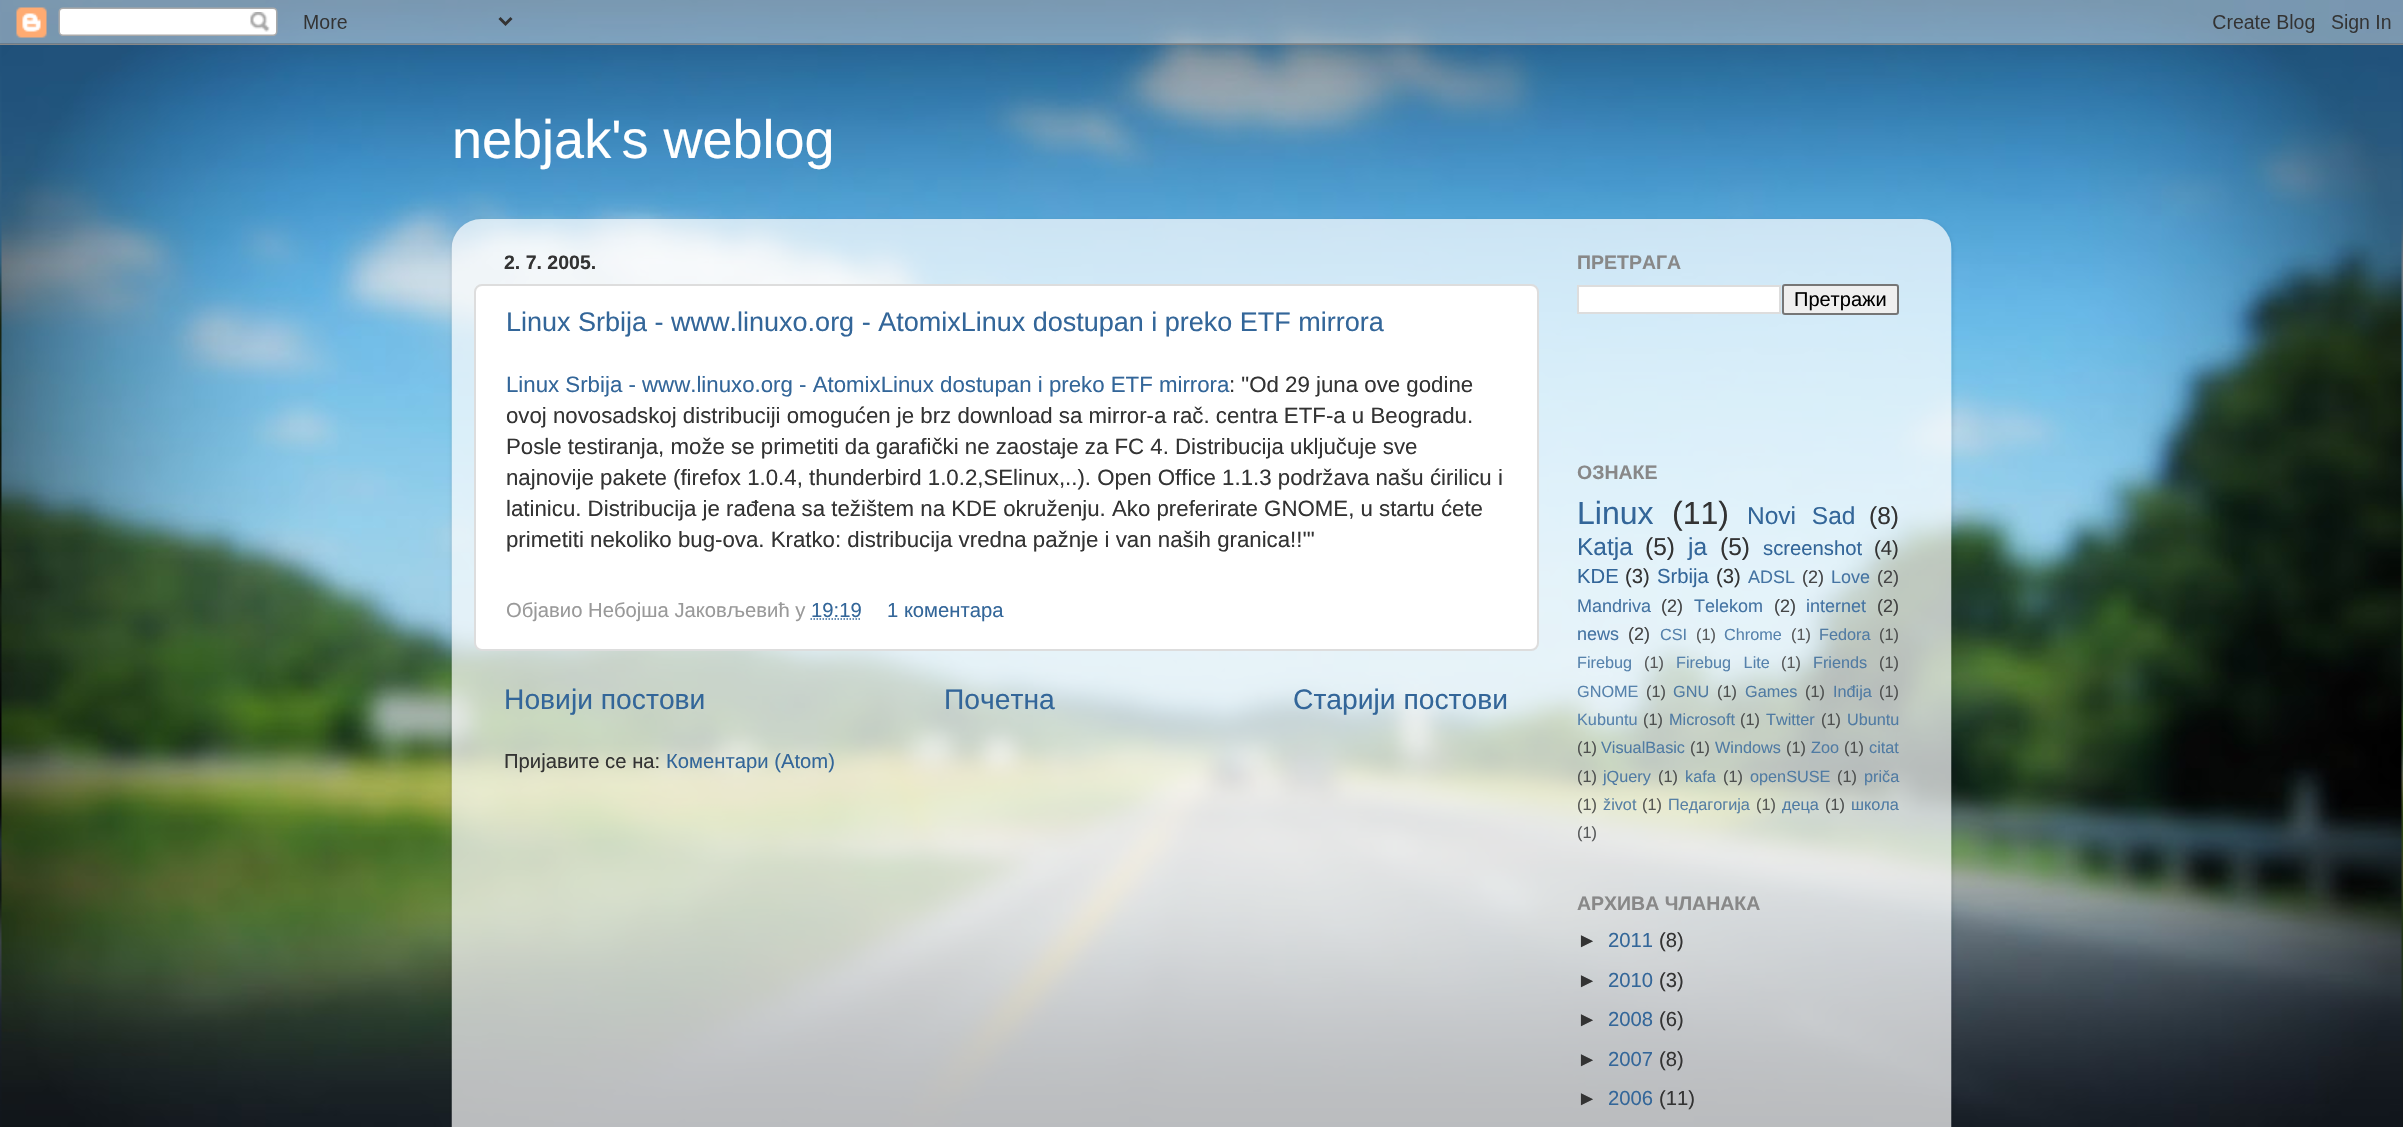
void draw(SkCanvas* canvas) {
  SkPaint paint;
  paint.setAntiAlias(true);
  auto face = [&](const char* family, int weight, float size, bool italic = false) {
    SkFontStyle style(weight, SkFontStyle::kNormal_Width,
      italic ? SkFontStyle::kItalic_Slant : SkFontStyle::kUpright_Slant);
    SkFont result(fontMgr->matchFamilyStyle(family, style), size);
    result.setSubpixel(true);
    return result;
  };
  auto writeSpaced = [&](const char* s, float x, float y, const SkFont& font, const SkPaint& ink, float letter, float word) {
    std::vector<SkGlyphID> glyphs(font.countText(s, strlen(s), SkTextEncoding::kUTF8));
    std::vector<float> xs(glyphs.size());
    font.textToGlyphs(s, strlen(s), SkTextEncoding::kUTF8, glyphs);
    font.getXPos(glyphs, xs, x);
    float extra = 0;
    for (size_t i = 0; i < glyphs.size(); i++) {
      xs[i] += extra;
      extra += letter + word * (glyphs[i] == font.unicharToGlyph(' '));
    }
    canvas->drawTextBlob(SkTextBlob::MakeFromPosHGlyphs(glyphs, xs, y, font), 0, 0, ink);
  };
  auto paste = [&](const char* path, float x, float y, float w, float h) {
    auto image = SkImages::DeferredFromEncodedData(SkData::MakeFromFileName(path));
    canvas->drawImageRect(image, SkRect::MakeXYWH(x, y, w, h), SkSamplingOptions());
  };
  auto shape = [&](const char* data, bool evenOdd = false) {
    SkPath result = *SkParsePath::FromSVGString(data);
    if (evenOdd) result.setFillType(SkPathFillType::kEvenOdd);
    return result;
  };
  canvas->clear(0xffffffff);
  paste("img/1.png", 0, 0, 2403, 1127);
  paste("img/2.png", 0, 0, 2403, 45);
  canvas->save();
  canvas->clipPath(shape("M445 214H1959V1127H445ZM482 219H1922C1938.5 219 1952 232.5 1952 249V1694H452V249C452 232.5 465.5 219 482 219Z", true), true);
  paint.setColor(0x26000000);
  paint.setMaskFilter(SkMaskFilter::MakeBlur(kNormal_SkBlurStyle, 2));
  canvas->drawRoundRect(SkRect::MakeXYWH(452, 221, 1500, 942), 30, 30, paint);
  paint.setMaskFilter(nullptr);
  canvas->restore();
  paste("img/3.png", 451, 219, 1501, 908);
  paint.setColor(0xffffffff);
  canvas->drawRoundRect(SkRect::MakeXYWH(475, 285, 1063, 365), 7, 7, paint);
  paint.setStroke(true);
  paint.setStrokeWidth(2);
  paint.setColor(0xffdddddd);
  canvas->drawRoundRect(SkRect::MakeXYWH(475, 285, 1063, 365), 7, 7, paint);
  paint.setStrokeWidth(1.5f);
  paint.setColor(0xff336699);
  paint.setPathEffect(SkDashPathEffect::Make({{1.5f, 1.5f}}, 0));
  canvas->drawPath(shape("M810.5 619H861.5"), paint);
  paint.setPathEffect(nullptr);
  paint.setStroke(false);
  paint.setColor(0xffffffff);
  canvas->drawRect(SkRect::MakeXYWH(1578, 286, 202, 27), paint);
  paint.setStroke(true);
  paint.setStrokeWidth(2);
  paint.setColor(0xffdddddd);
  canvas->drawRect(SkRect::MakeXYWH(1578, 286, 202, 27), paint);
  paint.setStroke(false);
  paint.setColor(0xffefefef);
  canvas->drawRoundRect(SkRect::MakeXYWH(1783, 285, 115, 29), 2, 2, paint);
  paint.setStroke(true);
  paint.setColor(0xff767676);
  canvas->drawRoundRect(SkRect::MakeXYWH(1783, 285, 115, 29), 2, 2, paint);
  auto f0 = face("Liberation Sans", 400, 54);
  paint.setStroke(false);
  paint.setColor(0xffffffff);
  canvas->drawString("nebjak's weblog", 452, 158, f0, paint);
  auto f1 = face("Liberation Sans", 700, 19.5f);
  paint.setColor(0xff333333);
  canvas->drawString("2. 7. 2005.", 504, 269, f1, paint);
  auto f2 = face("Liberation Sans", 400, 27);
  paint.setColor(0xff336699);
  canvas->drawString("Linux Srbija - www.linuxo.org - AtomixLinux dostupan i preko ETF mirrora", 506, 331, f2, paint);
  auto f3 = face("Liberation Sans", 400, 22.25f);
  canvas->drawString("Linux Srbija - www.linuxo.org - AtomixLinux dostupan i preko ETF mirrora", 506, 392, f3, paint);
  paint.setColor(0xff333333);
  {
    const struct { const char* s; float x, y; } items[] = {
      {": \"Od 29 juna ove godine", 1229, 392},
      {"ovoj novosadskoj distribuciji omogućen je brz download sa mirror-a rač. centra ETF-a u Beogradu.", 506, 423},
      {"Posle testiranja, može se primetiti da garafički ne zaostaje za FC 4. Distribucija uključuje sve", 506, 454},
      {"najnovije pakete (firefox 1.0.4, thunderbird 1.0.2,SElinux,..). Open Office 1.1.3 podržava našu ćirilicu i", 506, 485},
      {"latinicu. Distribucija je rađena sa težištem na KDE okruženju. Ako preferirate GNOME, u startu ćete", 506, 516},
      {"primetiti nekoliko bug-ova. Kratko: distribucija vredna pažnje i van naših granica!!'\"", 506, 547},
    };
    for (auto [s, x, y] : items) {
      canvas->drawString(s, x, y, f3, paint);
    }
  }
  auto f4 = face("Liberation Sans", 400, 20.25f);
  paint.setColor(0xff999999);
  canvas->drawString("Објавио Небојша Јаковљевић у", 506, 617, f4, paint);
  paint.setColor(0xff336699);
  canvas->drawString("19:19", 811, 617, f4, paint);
  canvas->drawString("1 коментара", 887, 617, f4, paint);
  auto f5 = face("Liberation Sans", 400, 28.25f);
  {
    const struct { const char* s; float x, y; } items[] = {
      {"Новији постови", 504, 709},
      {"Почетна", 944, 709},
      {"Старији постови", 1293, 709},
    };
    for (auto [s, x, y] : items) {
      canvas->drawString(s, x, y, f5, paint);
    }
  }
  paint.setColor(0xff333333);
  canvas->drawString("Пријавите се на:", 504, 768, f4, paint);
  paint.setColor(0xff336699);
  canvas->drawString("Коментари (Atom)", 666, 768, f4, paint);
  paint.setColor(0xff888888);
  canvas->drawString("ПРЕТРАГА", 1577, 269, f1, paint);
  auto f6 = face("Liberation Sans", 400, 20);
  paint.setColor(0xff000000);
  canvas->drawString("Претражи", 1794, 306, f6, paint);
  paint.setColor(0xff888888);
  canvas->drawString("ОЗНАКЕ", 1577, 479, f1, paint);
  auto f7 = face("Liberation Sans", 400, 32);
  paint.setColor(0xff336699);
  canvas->drawString("Linux", 1577, 524, f7, paint);
  paint.setColor(0xff333333);
  canvas->drawString("(11)", 1672, 524, f7, paint);
  auto f8 = face("Liberation Sans", 400, 24.5f);
  paint.setColor(0xff336699);
  writeSpaced("Novi Sad", 1747, 524, f8, paint, 0, 9);
  paint.setColor(0xff333333);
  canvas->drawString("(8)", 1869, 524, f8, paint);
  paint.setColor(0xff336699);
  canvas->drawString("Katja", 1577, 555, f8, paint);
  paint.setColor(0xff333333);
  canvas->drawString("(5)", 1645, 555, f8, paint);
  paint.setColor(0xff336699);
  canvas->drawString("ja", 1688, 555, f8, paint);
  paint.setColor(0xff333333);
  canvas->drawString("(5)", 1720, 555, f8, paint);
  paint.setColor(0xff336699);
  canvas->drawString("screenshot", 1763, 555, f4, paint);
  paint.setColor(0xff333333);
  canvas->drawString("(4)", 1874, 555, f4, paint);
  paint.setColor(0xff336699);
  canvas->drawString("KDE", 1577, 583, f4, paint);
  paint.setColor(0xff333333);
  canvas->drawString("(3)", 1625, 583, f4, paint);
  paint.setColor(0xff336699);
  canvas->drawString("Srbija", 1657, 583, f4, paint);
  paint.setColor(0xff333333);
  canvas->drawString("(3)", 1716, 583, f4, paint);
  auto f9 = face("Liberation Sans", 400, 18);
  paint.setColor(0xff4574a3);
  canvas->drawString("ADSL", 1748, 583, f9, paint);
  paint.setColor(0xff454647);
  canvas->drawString("(2)", 1802, 583, f9, paint);
  paint.setColor(0xff4574a3);
  canvas->drawString("Love", 1831, 583, f9, paint);
  paint.setColor(0xff454647);
  canvas->drawString("(2)", 1877, 583, f9, paint);
  paint.setColor(0xff4574a3);
  canvas->drawString("Mandriva", 1577, 612, f9, paint);
  paint.setColor(0xff454647);
  canvas->drawString("(2)", 1661, 612, f9, paint);
  paint.setColor(0xff4574a3);
  canvas->drawString("Telekom", 1694, 612, f9, paint);
  paint.setColor(0xff454647);
  canvas->drawString("(2)", 1774, 612, f9, paint);
  paint.setColor(0xff4574a3);
  canvas->drawString("internet", 1806, 612, f9, paint);
  paint.setColor(0xff414241);
  canvas->drawString("(2)", 1877, 612, f9, paint);
  paint.setColor(0xff4574a3);
  canvas->drawString("news", 1577, 640, f9, paint);
  paint.setColor(0xff454647);
  canvas->drawString("(2)", 1628, 640, f9, paint);
  auto f10 = face("Liberation Sans", 400, 16.25f);
  paint.setColor(0xff5682ac);
  canvas->drawString("CSI", 1660, 640, f10, paint);
  paint.setColor(0xff57595a);
  canvas->drawString("(1)", 1696, 640, f10, paint);
  paint.setColor(0xff5682ac);
  canvas->drawString("Chrome", 1724, 640, f10, paint);
  paint.setColor(0xff57595a);
  canvas->drawString("(1)", 1791, 640, f10, paint);
  paint.setColor(0xff507ba3);
  canvas->drawString("Fedora", 1819, 640, f10, paint);
  paint.setColor(0xff4e504f);
  canvas->drawString("(1)", 1879, 640, f10, paint);
  paint.setColor(0xff5682ac);
  canvas->drawString("Firebug", 1577, 668, f10, paint);
  paint.setColor(0xff57595a);
  canvas->drawString("(1)", 1644, 668, f10, paint);
  paint.setColor(0xff5682ac);
  writeSpaced("Firebug Lite", 1676, 668, f10, paint, 0, 8);
  paint.setColor(0xff57595a);
  canvas->drawString("(1)", 1781, 668, f10, paint);
  paint.setColor(0xff507ba3);
  canvas->drawString("Friends", 1813, 668, f10, paint);
  paint.setColor(0xff4e504f);
  canvas->drawString("(1)", 1879, 668, f10, paint);
  paint.setColor(0xff5682ac);
  canvas->drawString("GNOME", 1577, 697, f10, paint);
  paint.setColor(0xff4e504f);
  canvas->drawString("(1)", 1646, 697, f10, paint);
  paint.setColor(0xff507ba3);
  canvas->drawString("GNU", 1673, 697, f10, paint);
  paint.setColor(0xff4e504f);
  canvas->drawString("(1)", 1717, 697, f10, paint);
  paint.setColor(0xff507ba3);
  canvas->drawString("Games", 1745, 697, f10, paint);
  paint.setColor(0xff4e504f);
  canvas->drawString("(1)", 1805, 697, f10, paint);
  paint.setColor(0xff507ba3);
  canvas->drawString("Inđija", 1833, 697, f10, paint);
  paint.setColor(0xff4e504f);
  canvas->drawString("(1)", 1879, 697, f10, paint);
  paint.setColor(0xff5682ac);
  canvas->drawString("Kubuntu", 1577, 725, f10, paint);
  paint.setColor(0xff4e504f);
  canvas->drawString("(1)", 1643, 725, f10, paint);
  paint.setColor(0xff507ba3);
  canvas->drawString("Microsoft", 1669, 725, f10, paint);
  paint.setColor(0xff4e504f);
  canvas->drawString("(1)", 1740, 725, f10, paint);
  paint.setColor(0xff507ba3);
  canvas->drawString("Twitter", 1766, 725, f10, paint);
  paint.setColor(0xff4e504f);
  canvas->drawString("(1)", 1821, 725, f10, paint);
  paint.setColor(0xff507ba3);
  canvas->drawString("Ubuntu", 1847, 725, f10, paint);
  paint.setColor(0xff4e504f);
  canvas->drawString("(1)", 1577, 753, f10, paint);
  paint.setColor(0xff507ba3);
  canvas->drawString("VisualBasic", 1601, 753, f10, paint);
  paint.setColor(0xff4e504f);
  canvas->drawString("(1)", 1690, 753, f10, paint);
  paint.setColor(0xff507ba3);
  canvas->drawString("Windows", 1715, 753, f10, paint);
  paint.setColor(0xff4e504f);
  canvas->drawString("(1)", 1786, 753, f10, paint);
  paint.setColor(0xff507ba3);
  canvas->drawString("Zoo", 1811, 753, f10, paint);
  paint.setColor(0xff4e504f);
  canvas->drawString("(1)", 1844, 753, f10, paint);
  paint.setColor(0xff507ba3);
  canvas->drawString("citat", 1869, 753, f10, paint);
  paint.setColor(0xff4e504f);
  canvas->drawString("(1)", 1577, 782, f10, paint);
  paint.setColor(0xff507ba3);
  canvas->drawString("jQuery", 1603, 782, f10, paint);
  paint.setColor(0xff4e504f);
  canvas->drawString("(1)", 1658, 782, f10, paint);
  paint.setColor(0xff507ba3);
  canvas->drawString("kafa", 1685, 782, f10, paint);
  paint.setColor(0xff4e504f);
  canvas->drawString("(1)", 1723, 782, f10, paint);
  paint.setColor(0xff507ba3);
  canvas->drawString("openSUSE", 1750, 782, f10, paint);
  paint.setColor(0xff4e504f);
  canvas->drawString("(1)", 1837, 782, f10, paint);
  paint.setColor(0xff507ba3);
  canvas->drawString("priča", 1864, 782, f10, paint);
  paint.setColor(0xff575854);
  canvas->drawString("(1)", 1577, 810, f10, paint);
  paint.setColor(0xff5780a4);
  canvas->drawString("život", 1603, 810, f10, paint);
  paint.setColor(0xff575854);
  canvas->drawString("(1)", 1642, 810, f10, paint);
  paint.setColor(0xff5780a4);
  canvas->drawString("Педагогија", 1668, 810, f10, paint);
  paint.setColor(0xff575854);
  canvas->drawString("(1)", 1756, 810, f10, paint);
  paint.setColor(0xff507ba3);
  canvas->drawString("деца", 1782, 810, f10, paint);
  paint.setColor(0xff4e504f);
  canvas->drawString("(1)", 1825, 810, f10, paint);
  paint.setColor(0xff507ba3);
  canvas->drawString("школа", 1851, 810, f10, paint);
  paint.setColor(0xff57595a);
  canvas->drawString("(1)", 1577, 838, f10, paint);
  paint.setColor(0xff888888);
  canvas->drawString("АРХИВА ЧЛАНАКА", 1577, 910, f1, paint);
  paint.setColor(0xff333333);
  canvas->drawString("►", 1577, 947, f4, paint);
  paint.setColor(0xff336699);
  canvas->drawString("2011", 1608, 947, f4, paint);
  paint.setColor(0xff333333);
  canvas->drawString("(8)", 1659, 947, f4, paint);
  canvas->drawString("►", 1577, 987, f4, paint);
  paint.setColor(0xff336699);
  canvas->drawString("2010", 1608, 987, f4, paint);
  paint.setColor(0xff333333);
  canvas->drawString("(3)", 1659, 987, f4, paint);
  canvas->drawString("►", 1577, 1026, f4, paint);
  paint.setColor(0xff336699);
  canvas->drawString("2008", 1608, 1026, f4, paint);
  paint.setColor(0xff333333);
  canvas->drawString("(6)", 1659, 1026, f4, paint);
  canvas->drawString("►", 1577, 1066, f4, paint);
  paint.setColor(0xff336699);
  canvas->drawString("2007", 1608, 1066, f4, paint);
  paint.setColor(0xff333333);
  canvas->drawString("(8)", 1659, 1066, f4, paint);
  canvas->drawString("►", 1577, 1105, f4, paint);
  paint.setColor(0xff336699);
  canvas->drawString("2006", 1608, 1105, f4, paint);
  paint.setColor(0xff333333);
  canvas->drawString("(11)", 1659, 1105, f4, paint);
}
